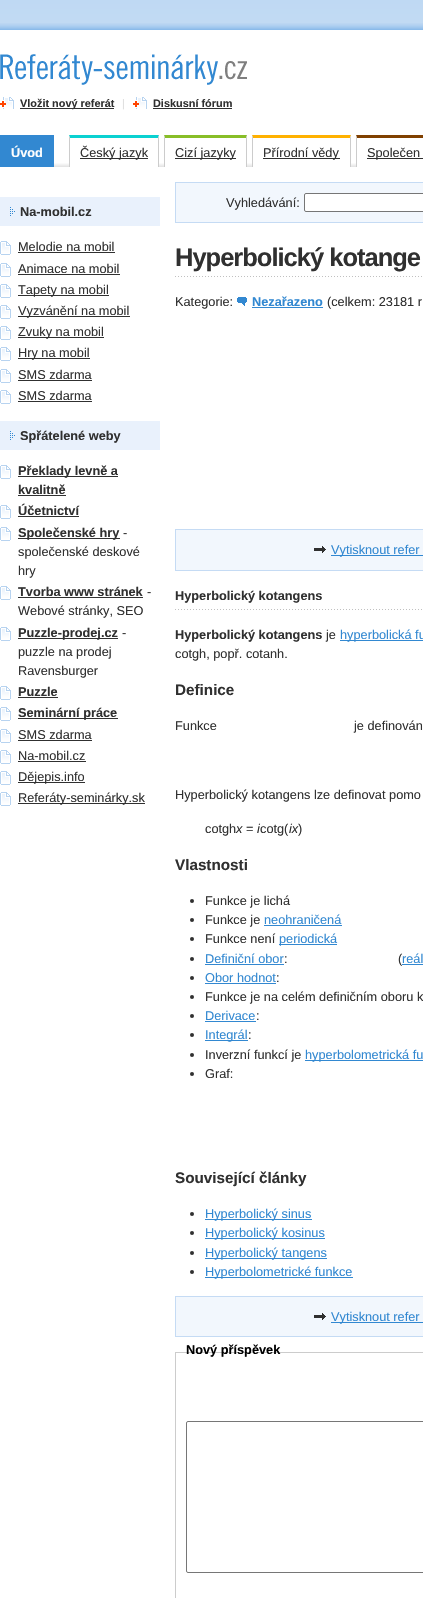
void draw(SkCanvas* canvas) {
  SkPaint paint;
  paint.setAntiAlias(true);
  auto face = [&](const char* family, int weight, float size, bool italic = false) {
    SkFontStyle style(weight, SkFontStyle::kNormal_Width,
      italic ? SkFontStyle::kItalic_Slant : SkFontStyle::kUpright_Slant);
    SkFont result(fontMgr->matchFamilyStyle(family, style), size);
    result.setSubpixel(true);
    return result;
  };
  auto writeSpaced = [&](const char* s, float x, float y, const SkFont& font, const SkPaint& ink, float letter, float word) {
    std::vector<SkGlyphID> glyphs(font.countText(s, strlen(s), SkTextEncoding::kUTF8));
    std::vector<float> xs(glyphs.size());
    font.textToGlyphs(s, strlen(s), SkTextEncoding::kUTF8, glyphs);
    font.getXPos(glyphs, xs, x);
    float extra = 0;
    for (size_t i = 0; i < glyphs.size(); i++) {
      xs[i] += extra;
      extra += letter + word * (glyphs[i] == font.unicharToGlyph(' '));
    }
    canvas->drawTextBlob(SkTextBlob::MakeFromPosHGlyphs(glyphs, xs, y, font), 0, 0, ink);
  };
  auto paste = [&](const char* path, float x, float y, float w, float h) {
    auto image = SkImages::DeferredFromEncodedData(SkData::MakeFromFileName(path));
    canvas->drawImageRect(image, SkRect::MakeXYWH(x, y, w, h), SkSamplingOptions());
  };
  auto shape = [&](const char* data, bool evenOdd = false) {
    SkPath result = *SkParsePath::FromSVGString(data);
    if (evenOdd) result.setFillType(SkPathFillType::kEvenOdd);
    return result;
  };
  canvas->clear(0xffffffff);
  paste("img/1.png", 0, 0, 423, 23);
  paste("img/2.png", 0, 23, 423, 290);
  paste("img/3.png", 0, 54, 247, 31);
  paste("img/4.png", 0, 97, 14, 12);
  paint.setColor(0xff303030);
  canvas->drawRect(SkRect::MakeXYWH(20, 108, 94, 1), paint);
  paste("img/4.png", 133, 97, 14, 12);
  canvas->drawRect(SkRect::MakeXYWH(153, 108, 79, 1), paint);
  paste("img/5.png", 54, 163, 302, 4);
  paint.setColor(0xff3288d1);
  canvas->drawRect(SkRect::MakeXYWH(0, 135, 54, 32), paint);
  paint.setColor(0xffffffff);
  canvas->drawRect(SkRect::MakeXYWH(69, 163, 90, 4), paint);
  paint.setColor(0xff0ad1d1);
  canvas->drawPath(shape("M69 135H159L158 138H70Z"), paint);
  paint.setColor(0xffcccccc);
  canvas->drawPath(shape("M159 135V167H158V138Z"), paint);
  canvas->drawPath(shape("M69 167V135L70 138V167Z"), paint);
  paint.setColor(0xff303030);
  canvas->drawRect(SkRect::MakeXYWH(80, 158, 68, 1), paint);
  paint.setColor(0xffffffff);
  canvas->drawRect(SkRect::MakeXYWH(164, 163, 83, 4), paint);
  paint.setColor(0xff88be28);
  canvas->drawPath(shape("M164 135H247L246 138H165Z"), paint);
  paint.setColor(0xffcccccc);
  canvas->drawPath(shape("M247 135V167H246V138Z"), paint);
  canvas->drawPath(shape("M164 167V135L165 138V167Z"), paint);
  paint.setColor(0xff303030);
  canvas->drawRect(SkRect::MakeXYWH(175, 158, 61, 1), paint);
  paint.setColor(0xffffffff);
  canvas->drawRect(SkRect::MakeXYWH(252, 163, 99, 4), paint);
  paint.setColor(0xffffb100);
  canvas->drawPath(shape("M252 135H351L350 138H253Z"), paint);
  paint.setColor(0xffcccccc);
  canvas->drawPath(shape("M351 135V167H350V138Z"), paint);
  canvas->drawPath(shape("M252 167V135L253 138V167Z"), paint);
  paint.setColor(0xff303030);
  canvas->drawRect(SkRect::MakeXYWH(263, 158, 77, 1), paint);
  paint.setColor(0xff804000);
  canvas->drawPath(shape("M356 135H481L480 138H357Z"), paint);
  paint.setColor(0xffcccccc);
  canvas->drawPath(shape("M356 167V135L357 138V167Z"), paint);
  paint.setColor(0xff303030);
  canvas->drawRect(SkRect::MakeXYWH(367, 158, 56, 1), paint);
  paint.setColor(0xffe9f1fc);
  canvas->drawRect(SkRect::MakeXYWH(0, 197, 160, 29), paint);
  paste("img/6.png", 10, 207, 5, 9);
  paste("img/7.png", 0, 241, 11, 14);
  paint.setColor(0xff303030);
  canvas->drawRect(SkRect::MakeXYWH(18, 252, 97, 1), paint);
  paste("img/7.png", 0, 263, 11, 14);
  canvas->drawRect(SkRect::MakeXYWH(18, 274, 102, 1), paint);
  paste("img/7.png", 0, 284, 11, 14);
  canvas->drawRect(SkRect::MakeXYWH(18, 295, 91, 1), paint);
  paste("img/7.png", 0, 305, 11, 14);
  canvas->drawRect(SkRect::MakeXYWH(18, 316, 112, 1), paint);
  paste("img/7.png", 0, 326, 11, 14);
  canvas->drawRect(SkRect::MakeXYWH(18, 337, 86, 1), paint);
  paste("img/7.png", 0, 347, 11, 14);
  canvas->drawRect(SkRect::MakeXYWH(18, 358, 72, 1), paint);
  paste("img/7.png", 0, 369, 11, 14);
  canvas->drawRect(SkRect::MakeXYWH(18, 380, 74, 1), paint);
  paste("img/7.png", 0, 390, 11, 14);
  canvas->drawRect(SkRect::MakeXYWH(18, 401, 74, 1), paint);
  paint.setColor(0xffe9f1fc);
  canvas->drawRect(SkRect::MakeXYWH(0, 421, 160, 29), paint);
  paste("img/6.png", 10, 431, 5, 9);
  paste("img/7.png", 0, 465, 11, 14);
  paint.setColor(0xff303030);
  canvas->drawRect(SkRect::MakeXYWH(18, 476, 100, 1), paint);
  canvas->drawRect(SkRect::MakeXYWH(18, 495, 48, 1), paint);
  paste("img/7.png", 0, 505, 11, 14);
  canvas->drawRect(SkRect::MakeXYWH(18, 516, 61, 1), paint);
  paste("img/7.png", 0, 527, 11, 14);
  canvas->drawRect(SkRect::MakeXYWH(18, 538, 102, 1), paint);
  paste("img/7.png", 0, 586, 11, 14);
  canvas->drawRect(SkRect::MakeXYWH(18, 597, 125, 1), paint);
  paste("img/7.png", 0, 627, 11, 14);
  canvas->drawRect(SkRect::MakeXYWH(18, 638, 100, 1), paint);
  paste("img/7.png", 0, 686, 11, 14);
  canvas->drawRect(SkRect::MakeXYWH(18, 697, 40, 1), paint);
  paste("img/7.png", 0, 707, 11, 14);
  canvas->drawRect(SkRect::MakeXYWH(18, 718, 100, 1), paint);
  paste("img/7.png", 0, 729, 11, 14);
  canvas->drawRect(SkRect::MakeXYWH(18, 740, 74, 1), paint);
  paste("img/7.png", 0, 750, 11, 14);
  canvas->drawRect(SkRect::MakeXYWH(18, 761, 68, 1), paint);
  paste("img/7.png", 0, 771, 11, 14);
  canvas->drawRect(SkRect::MakeXYWH(18, 782, 67, 1), paint);
  paste("img/7.png", 0, 792, 11, 14);
  canvas->drawRect(SkRect::MakeXYWH(18, 803, 127, 1), paint);
  paint.setColor(0xfff2f7fd);
  canvas->drawRect(SkRect::MakeXYWH(175.5f, 182.5f, 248, 40), paint);
  paint.setStroke(true);
  paint.setStrokeWidth(1);
  paint.setColor(0xffc5dbf4);
  canvas->drawRect(SkRect::MakeXYWH(175.5f, 182.5f, 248, 40), paint);
  paint.setStroke(false);
  paint.setColor(0xffffffff);
  canvas->drawRoundRect(SkRect::MakeXYWH(304.5f, 193.5f, 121, 18), 1.5f, 1.5f, paint);
  paint.setStroke(true);
  paint.setColor(0xff767676);
  canvas->drawRoundRect(SkRect::MakeXYWH(304.5f, 193.5f, 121, 18), 1.5f, 1.5f, paint);
  paste("img/8.png", 175, 276, 247, 1);
  paste("img/9.png", 237, 297, 10, 9);
  paint.setStroke(false);
  paint.setColor(0xff3288d1);
  canvas->drawRect(SkRect::MakeXYWH(252, 307, 71, 1), paint);
  paint.setColor(0xfff2f7fd);
  canvas->drawRect(SkRect::MakeXYWH(175.5f, 529.5f, 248, 41), paint);
  paint.setStroke(true);
  paint.setColor(0xffc5dbf4);
  canvas->drawRect(SkRect::MakeXYWH(175.5f, 529.5f, 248, 41), paint);
  paste("img/10.png", 314, 546, 12, 7);
  paint.setStroke(false);
  paint.setColor(0xff3288d1);
  canvas->drawRect(SkRect::MakeXYWH(331, 555, 92, 1), paint);
  paste("img/8.png", 175, 609, 247, 1);
  canvas->drawRect(SkRect::MakeXYWH(340, 640, 83, 1), paint);
  paint.setColor(0xff303030);
  canvas->drawCircle(192, 901, 2, paint);
  canvas->drawCircle(192, 920, 2, paint);
  paint.setColor(0xff3288d1);
  canvas->drawRect(SkRect::MakeXYWH(264, 925, 78, 1), paint);
  paint.setColor(0xff303030);
  canvas->drawCircle(192, 939, 2, paint);
  paint.setColor(0xff3288d1);
  canvas->drawRect(SkRect::MakeXYWH(279, 944, 58, 1), paint);
  paint.setColor(0xff303030);
  canvas->drawCircle(192, 959, 2, paint);
  paint.setColor(0xff3288d1);
  canvas->drawRect(SkRect::MakeXYWH(205, 964, 79, 1), paint);
  paint.setColor(0xff303030);
  canvas->drawCircle(192, 978, 2, paint);
  paint.setColor(0xff3288d1);
  canvas->drawRect(SkRect::MakeXYWH(205, 983, 71, 1), paint);
  paint.setColor(0xff303030);
  canvas->drawCircle(192, 997, 2, paint);
  canvas->drawCircle(192, 1016, 2, paint);
  paint.setColor(0xff3288d1);
  canvas->drawRect(SkRect::MakeXYWH(205, 1021, 51, 1), paint);
  paint.setColor(0xff303030);
  canvas->drawCircle(192, 1035, 2, paint);
  paint.setColor(0xff3288d1);
  canvas->drawRect(SkRect::MakeXYWH(205, 1040, 43, 1), paint);
  paint.setColor(0xff303030);
  canvas->drawCircle(192, 1055, 2, paint);
  paint.setColor(0xff3288d1);
  canvas->drawRect(SkRect::MakeXYWH(305, 1060, 118, 1), paint);
  paint.setColor(0xff303030);
  canvas->drawCircle(192, 1074, 2, paint);
  canvas->drawCircle(192, 1214, 2, paint);
  paint.setColor(0xff3288d1);
  canvas->drawRect(SkRect::MakeXYWH(205, 1219, 107, 1), paint);
  paint.setColor(0xff303030);
  canvas->drawCircle(192, 1233, 2, paint);
  paint.setColor(0xff3288d1);
  canvas->drawRect(SkRect::MakeXYWH(205, 1238, 120, 1), paint);
  paint.setColor(0xff303030);
  canvas->drawCircle(192, 1253, 2, paint);
  paint.setColor(0xff3288d1);
  canvas->drawRect(SkRect::MakeXYWH(205, 1258, 122, 1), paint);
  paint.setColor(0xff303030);
  canvas->drawCircle(192, 1272, 2, paint);
  paint.setColor(0xff3288d1);
  canvas->drawRect(SkRect::MakeXYWH(205, 1277, 148, 1), paint);
  paint.setColor(0xfff2f7fd);
  canvas->drawRect(SkRect::MakeXYWH(175.5f, 1296.5f, 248, 40), paint);
  paint.setStroke(true);
  paint.setColor(0xffc5dbf4);
  canvas->drawRect(SkRect::MakeXYWH(175.5f, 1296.5f, 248, 40), paint);
  paste("img/10.png", 314, 1313, 12, 7);
  paint.setStroke(false);
  paint.setColor(0xff3288d1);
  canvas->drawRect(SkRect::MakeXYWH(331, 1322, 92, 1), paint);
  paint.setStroke(true);
  paint.setColor(0xffcccccc);
  canvas->drawRect(SkRect::MakeXYWH(175.5f, 1352.5f, 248, 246), paint);
  paint.setColor(0xff767676);
  canvas->drawRoundRect(SkRect::MakeXYWH(186.5f, 1421.5f, 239, 151), 1.5f, 1.5f, paint);
  auto f0 = face("Liberation Sans", 700, 10.9f);
  paint.setStroke(false);
  paint.setColor(0xff303030);
  canvas->drawString("Vložit nový referát", 20, 107, f0, paint);
  auto f1 = face("Liberation Sans", 400, 10.9f);
  paint.setColor(0xffdddddd);
  canvas->drawString("|", 122, 107, f1, paint);
  paint.setColor(0xff303030);
  canvas->drawString("Diskusní fórum", 153, 107, f0, paint);
  auto f2 = face("Liberation Sans", 700, 12.75f);
  paint.setColor(0xffffffff);
  canvas->drawString("Úvod", 11, 157, f2, paint);
  auto f3 = face("Liberation Sans", 400, 12.75f);
  paint.setColor(0xff303030);
  {
    const struct { const char* s; float x, y; } items[] = {
      {"Český jazyk", 80, 157},
      {"Cizí jazyky", 175, 157},
      {"Přírodní vědy", 263, 157},
      {"Společen", 367, 157},
    };
    for (auto [s, x, y] : items) {
      canvas->drawString(s, x, y, f3, paint);
    }
  }
  canvas->drawString("Na-mobil.cz", 20, 216, f2, paint);
  {
    const struct { const char* s; float x, y; } items[] = {
      {"Melodie na mobil", 18, 251},
      {"Animace na mobil", 18, 273},
      {"Tapety na mobil", 18, 294},
      {"Vyzvánění na mobil", 18, 315},
      {"Zvuky na mobil", 18, 336},
      {"Hry na mobil", 18, 357},
      {"SMS zdarma", 18, 379},
      {"SMS zdarma", 18, 400},
    };
    for (auto [s, x, y] : items) {
      canvas->drawString(s, x, y, f3, paint);
    }
  }
  {
    const struct { const char* s; float x, y; } items[] = {
      {"Spřátelené weby", 20, 440},
      {"Překlady levně a", 18, 475},
      {"kvalitně", 18, 494},
      {"Účetnictví", 18, 515},
      {"Společenské hry", 18, 537},
    };
    for (auto [s, x, y] : items) {
      canvas->drawString(s, x, y, f2, paint);
    }
  }
  {
    const struct { const char* s; float x, y; } items[] = {
      {"-", 123, 537},
      {"společenské deskové", 18, 556},
      {"hry", 18, 575},
    };
    for (auto [s, x, y] : items) {
      canvas->drawString(s, x, y, f3, paint);
    }
  }
  canvas->drawString("Tvorba www stránek", 18, 596, f2, paint);
  canvas->drawString("-", 147, 596, f3, paint);
  canvas->drawString("Webové stránky, SEO", 18, 615, f3, paint);
  canvas->drawString("Puzzle-prodej.cz", 18, 637, f2, paint);
  {
    const struct { const char* s; float x, y; } items[] = {
      {"-", 122, 637},
      {"puzzle na prodej", 18, 656},
      {"Ravensburger", 18, 675},
    };
    for (auto [s, x, y] : items) {
      canvas->drawString(s, x, y, f3, paint);
    }
  }
  canvas->drawString("Puzzle", 18, 696, f2, paint);
  canvas->drawString("Seminární práce", 18, 717, f2, paint);
  {
    const struct { const char* s; float x, y; } items[] = {
      {"SMS zdarma", 18, 739},
      {"Na-mobil.cz", 18, 760},
      {"Dějepis.info", 18, 781},
      {"Referáty-seminárky.sk", 18, 802},
      {"Vyhledávání:", 226, 207},
    };
    for (auto [s, x, y] : items) {
      canvas->drawString(s, x, y, f3, paint);
    }
  }
  auto f4 = face("Liberation Sans", 700, 25.5f);
  writeSpaced("Hyperbolický kotange", 175, 266, f4, paint, -1, 0);
  canvas->drawString("Kategorie:", 175, 306, f3, paint);
  paint.setColor(0xff3288d1);
  canvas->drawString("Nezařazeno", 252, 306, f2, paint);
  paint.setColor(0xff303030);
  canvas->drawString("(celkem: 23181 r", 327, 306, f3, paint);
  paint.setColor(0xff3288d1);
  canvas->drawString("Vytisknout refer", 331, 554, f3, paint);
  paint.setColor(0xff303030);
  canvas->drawString("Hyperbolický kotangens", 175, 600, f2, paint);
  canvas->drawString("Hyperbolický kotangens", 175, 639, f2, paint);
  canvas->drawString("je", 326, 639, f3, paint);
  paint.setColor(0xff3288d1);
  canvas->drawString("hyperbolická fu", 340, 639, f3, paint);
  paint.setColor(0xff303030);
  canvas->drawString("cotgh, popř. cotanh.", 175, 658, f3, paint);
  auto f5 = face("Liberation Sans", 700, 15.25f);
  canvas->drawString("Definice", 175, 695, f5, paint);
  {
    const struct { const char* s; float x, y; } items[] = {
      {"Funkce", 175, 730},
      {"je definován", 354, 730},
      {"Hyperbolický kotangens lze definovat pomo", 175, 799},
      {"cotgh", 205, 833},
    };
    for (auto [s, x, y] : items) {
      canvas->drawString(s, x, y, f3, paint);
    }
  }
  auto f6 = face("Liberation Sans", 400, 12.75f, true);
  canvas->drawString("x", 236, 833, f6, paint);
  canvas->drawString("=", 246, 833, f3, paint);
  canvas->drawString("i", 257, 833, f6, paint);
  canvas->drawString("cotg(", 260, 833, f3, paint);
  canvas->drawString("ix", 289, 833, f6, paint);
  canvas->drawString(")", 298, 833, f3, paint);
  canvas->drawString("Vlastnosti", 175, 870, f5, paint);
  canvas->drawString("Funkce je lichá", 205, 905, f3, paint);
  canvas->drawString("Funkce je", 205, 924, f3, paint);
  paint.setColor(0xff3288d1);
  canvas->drawString("neohraničená", 264, 924, f3, paint);
  paint.setColor(0xff303030);
  canvas->drawString("Funkce není", 205, 943, f3, paint);
  paint.setColor(0xff3288d1);
  canvas->drawString("periodická", 279, 943, f3, paint);
  canvas->drawString("Definiční obor", 205, 963, f3, paint);
  paint.setColor(0xff303030);
  canvas->drawString(":", 284, 963, f3, paint);
  canvas->drawString("(", 398, 963, f3, paint);
  paint.setColor(0xff3288d1);
  canvas->drawString("reál", 402, 963, f3, paint);
  canvas->drawRect(SkRect::MakeXYWH(402, 964, 21, 1), paint);
  canvas->drawString("Obor hodnot", 205, 982, f3, paint);
  paint.setColor(0xff303030);
  canvas->drawString(":", 276, 982, f3, paint);
  canvas->drawString("Funkce je na celém definičním oboru k", 205, 1001, f3, paint);
  paint.setColor(0xff3288d1);
  canvas->drawString("Derivace", 205, 1020, f3, paint);
  paint.setColor(0xff303030);
  canvas->drawString(":", 256, 1020, f3, paint);
  paint.setColor(0xff3288d1);
  canvas->drawString("Integrál", 205, 1039, f3, paint);
  paint.setColor(0xff303030);
  canvas->drawString(":", 248, 1039, f3, paint);
  canvas->drawString("Inverzní funkcí je", 205, 1059, f3, paint);
  paint.setColor(0xff3288d1);
  canvas->drawString("hyperbolometrická fu", 305, 1059, f3, paint);
  paint.setColor(0xff303030);
  canvas->drawString("Graf:", 205, 1078, f3, paint);
  canvas->drawString("Související články", 175, 1183, f5, paint);
  paint.setColor(0xff3288d1);
  {
    const struct { const char* s; float x, y; } items[] = {
      {"Hyperbolický sinus", 205, 1218},
      {"Hyperbolický kosinus", 205, 1237},
      {"Hyperbolický tangens", 205, 1257},
      {"Hyperbolometrické funkce", 205, 1276},
      {"Vytisknout refer", 331, 1321},
    };
    for (auto [s, x, y] : items) {
      canvas->drawString(s, x, y, f3, paint);
    }
  }
  paint.setColor(0xff000000);
  canvas->drawString("Nový příspěvek", 186, 1354, f2, paint);
}
